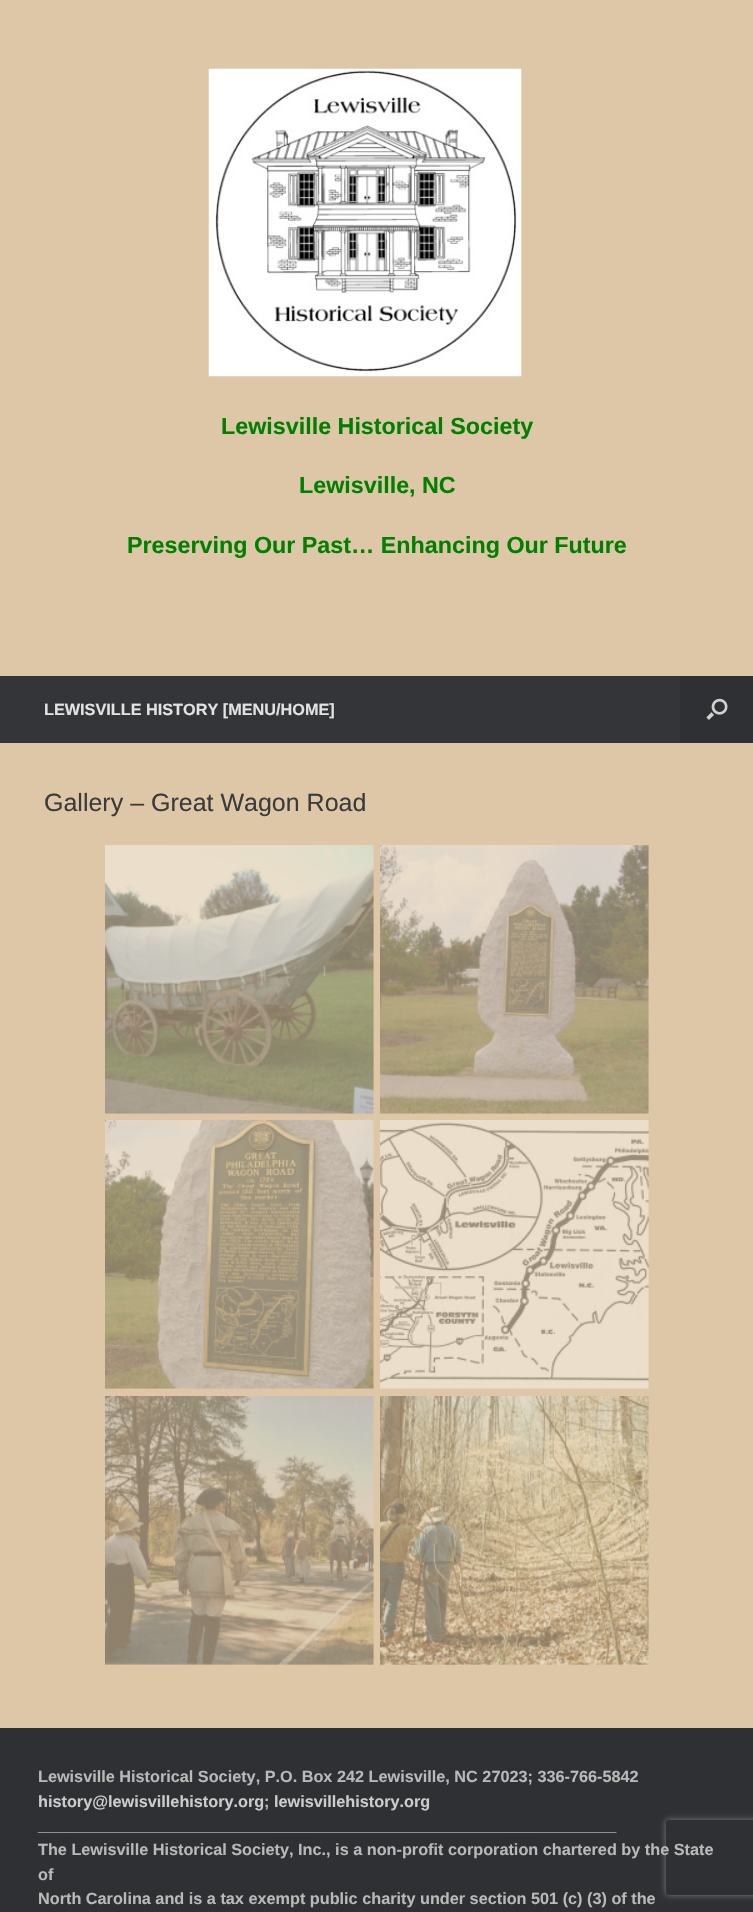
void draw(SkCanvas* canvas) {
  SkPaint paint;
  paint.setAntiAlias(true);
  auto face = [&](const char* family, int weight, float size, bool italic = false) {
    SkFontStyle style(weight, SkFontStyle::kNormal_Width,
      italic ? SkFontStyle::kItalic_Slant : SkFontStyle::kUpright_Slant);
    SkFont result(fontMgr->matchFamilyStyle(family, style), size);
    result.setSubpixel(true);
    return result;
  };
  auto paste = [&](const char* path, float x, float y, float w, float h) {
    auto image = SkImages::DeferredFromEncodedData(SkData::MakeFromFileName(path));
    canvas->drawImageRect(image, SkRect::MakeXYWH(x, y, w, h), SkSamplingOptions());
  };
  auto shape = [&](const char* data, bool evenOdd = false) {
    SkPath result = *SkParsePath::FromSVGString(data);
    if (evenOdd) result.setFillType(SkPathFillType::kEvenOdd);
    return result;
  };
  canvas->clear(0xff2f3033);
  paint.setColor(0xffddc7a6);
  canvas->drawRect(SkRect::MakeXYWH(0, 0, 753, 676), paint);
  paste("img/1.png", 208, 68, 314, 309);
  paint.setColor(0xff343538);
  canvas->drawRect(SkRect::MakeXYWH(0, 676, 680, 67), paint);
  paste("img/2.png", 706, 698, 22, 22);
  paint.setColor(0xffddc7a6);
  canvas->drawRect(SkRect::MakeXYWH(0, 743, 753, 985), paint);
  paste("img/3.png", 105, 845, 269, 269);
  paste("img/4.png", 380, 845, 269, 269);
  paste("img/5.png", 105, 1120, 269, 269);
  paste("img/6.png", 380, 1120, 269, 269);
  paste("img/7.png", 105, 1396, 269, 269);
  paste("img/8.png", 380, 1396, 269, 269);
  canvas->save();
  canvas->clipPath(shape("M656 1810H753V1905H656ZM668.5 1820H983.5C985 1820 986 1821 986 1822.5V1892.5C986 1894 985 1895 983.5 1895H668.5C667 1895 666 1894 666 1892.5V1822.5C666 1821 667 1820 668.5 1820Z", true), true);
  paint.setColor(0xff808080);
  paint.setMaskFilter(SkMaskFilter::MakeBlur(kNormal_SkBlurStyle, 3));
  canvas->drawRoundRect(SkRect::MakeXYWH(666, 1820, 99, 75), 2.5f, 2.5f, paint);
  paint.setMaskFilter(nullptr);
  canvas->restore();
  auto f0 = face("Liberation Sans", 700, 23.3f);
  paint.setColor(0xff008000);
  {
    const struct { const char* s; float x, y; } items[] = {
      {"Lewisville Historical Society", 221, 434},
      {"Lewisville, NC", 299, 493},
      {"Preserving Our Past… Enhancing Our Future", 127, 553},
    };
    for (auto [s, x, y] : items) {
      canvas->drawString(s, x, y, f0, paint);
    }
  }
  auto f1 = face("Liberation Sans", 700, 16.25f);
  paint.setColor(0xffe2e2e2);
  canvas->drawString("LEWISVILLE HISTORY [MENU/HOME]", 44, 715, f1, paint);
  auto f2 = face("Liberation Sans", 400, 25);
  paint.setColor(0xff3b3b3b);
  canvas->drawString("Gallery – Great Wagon Road", 44, 811, f2, paint);
  paint.setColor(0xffb9b9b9);
  canvas->drawString("Lewisville Historical Society, P.O. Box 242 Lewisville, NC 27023; 336-766-5842", 38, 1782, f1, paint);
  paint.setColor(0xffcccccc);
  canvas->drawString("history@lewisvillehistory.org", 38, 1807, f1, paint);
  paint.setColor(0xffb9b9b9);
  canvas->drawString(";", 264, 1807, f1, paint);
  paint.setColor(0xffcccccc);
  canvas->drawString("lewisvillehistory.org", 274, 1807, f1, paint);
  paint.setColor(0xffb9b9b9);
  {
    const struct { const char* s; float x, y; } items[] = {
      {"________________________________________________________________", 38, 1831},
      {"The Lewisville Historical Society, Inc., is a non-profit corporation chartered by the State", 38, 1855},
      {"of", 38, 1880},
      {"North Carolina and is a tax exempt public charity under section 501 (c) (3) of the", 38, 1904},
    };
    for (auto [s, x, y] : items) {
      canvas->drawString(s, x, y, f1, paint);
    }
  }
}
